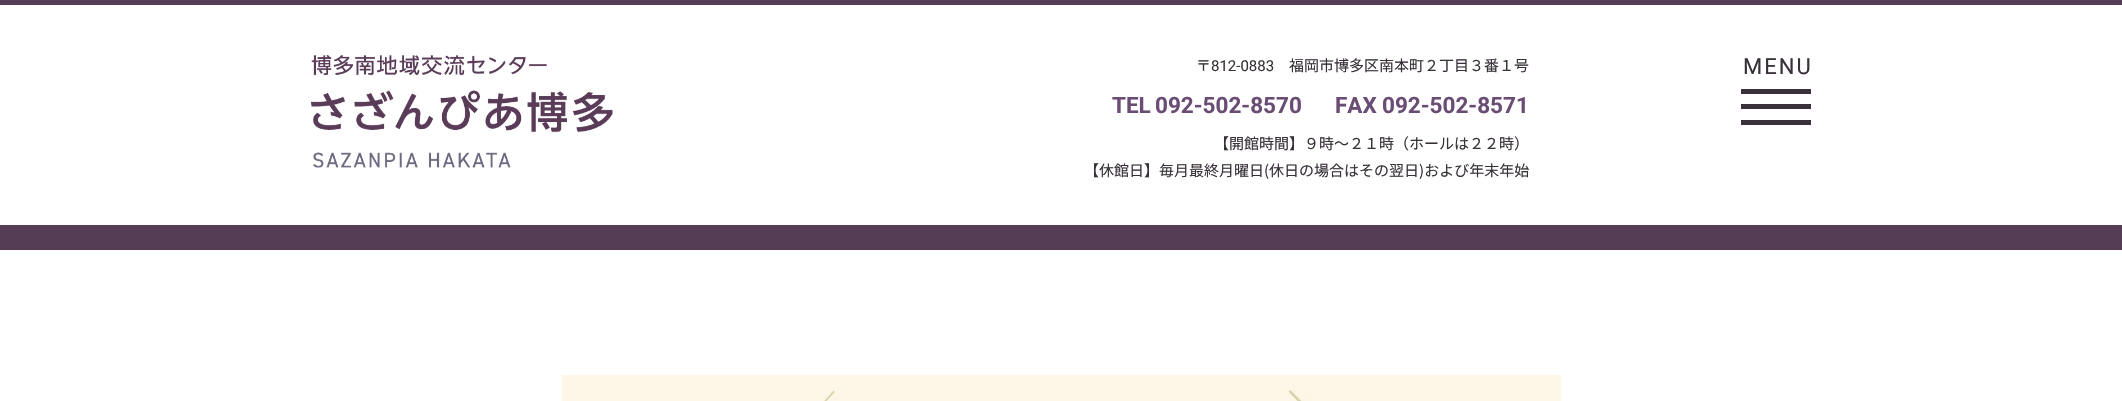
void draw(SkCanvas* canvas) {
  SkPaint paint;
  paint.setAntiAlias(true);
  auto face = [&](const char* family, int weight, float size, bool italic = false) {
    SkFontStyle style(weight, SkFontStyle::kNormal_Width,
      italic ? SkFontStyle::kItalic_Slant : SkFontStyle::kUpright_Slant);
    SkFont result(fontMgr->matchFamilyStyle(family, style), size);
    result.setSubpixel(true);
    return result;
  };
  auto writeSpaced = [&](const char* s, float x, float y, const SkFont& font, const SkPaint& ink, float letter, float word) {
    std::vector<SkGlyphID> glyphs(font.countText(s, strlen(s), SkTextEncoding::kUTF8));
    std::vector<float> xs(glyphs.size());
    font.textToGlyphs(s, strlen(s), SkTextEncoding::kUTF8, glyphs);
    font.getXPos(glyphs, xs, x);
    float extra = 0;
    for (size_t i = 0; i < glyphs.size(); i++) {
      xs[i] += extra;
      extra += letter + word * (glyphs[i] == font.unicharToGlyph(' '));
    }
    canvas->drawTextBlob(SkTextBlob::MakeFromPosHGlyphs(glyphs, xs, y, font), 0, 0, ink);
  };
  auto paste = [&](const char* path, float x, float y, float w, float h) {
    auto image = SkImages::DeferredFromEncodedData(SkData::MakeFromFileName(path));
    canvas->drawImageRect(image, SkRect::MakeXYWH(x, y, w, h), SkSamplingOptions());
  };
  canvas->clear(0xffffffff);
  paint.setColor(0xff553d56);
  canvas->drawRect(SkRect::MakeXYWH(0, 0, 2122, 5), paint);
  paste("img/1.png", 311, 55, 302, 113);
  {
    const struct { float x, y, w, h; SkColor color; } items[] = {
      {1741, 89, 70, 5, 0xff383139},
      {1741, 104, 70, 5, 0xff383139},
      {1741, 120, 70, 5, 0xff383139},
      {0, 225, 2122, 25, 0xff553d56},
    };
    for (auto [x, y, w, h, color] : items) {
      paint.setColor(color);
      canvas->drawRect(SkRect::MakeXYWH(x, y, w, h), paint);
    }
  }
  paste("img/2.png", 561, 375, 1001, 26);
  auto f0 = face("Noto Sans JP", 400, 15);
  paint.setColor(0xff383139);
  canvas->drawString("〒", 1196, 71, f0, paint);
  auto f1 = face("Roboto", 400, 15);
  canvas->drawString("812-0883", 1211, 71, f1, paint);
  canvas->drawString("福岡市博多区南本町２丁目３番１号", 1289, 71, f0, paint);
  auto f2 = face("Roboto", 700, 22.5f);
  paint.setColor(0xff6a4d74);
  {
    const struct { const char* s; float x, y; } items[] = {
      {"TEL", 1112, 113},
      {"092-502-8570", 1155, 113},
      {"FAX", 1335, 113},
      {"092-502-8571", 1382, 113},
    };
    for (auto [s, x, y] : items) {
      canvas->drawString(s, x, y, f2, paint);
    }
  }
  paint.setColor(0xff383139);
  canvas->drawString("【開館時間】９時～２１時（ホールは２２時）", 1214, 149, f0, paint);
  canvas->drawString("【休館日】毎月最終月曜日(休日の場合はその翌日)および年末年始", 1084, 176, f0, paint);
  auto f3 = face("Roboto", 400, 22);
  writeSpaced("MENU", 1743, 74, f3, paint, 2, 0);
}
